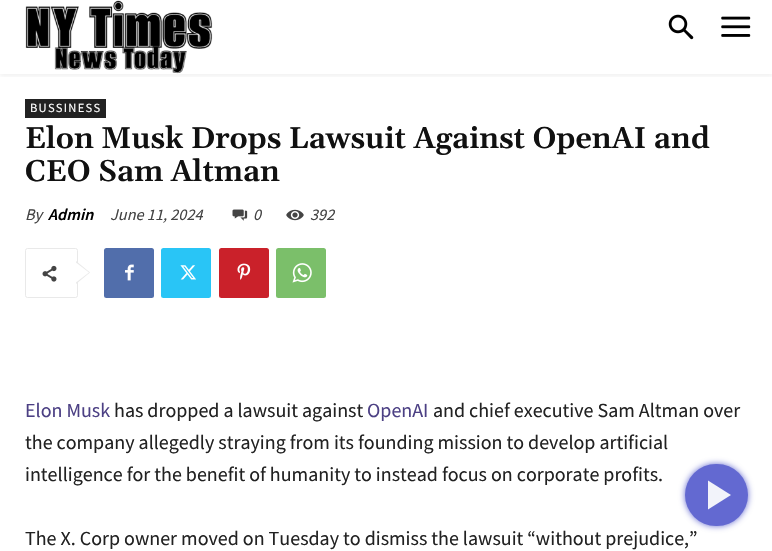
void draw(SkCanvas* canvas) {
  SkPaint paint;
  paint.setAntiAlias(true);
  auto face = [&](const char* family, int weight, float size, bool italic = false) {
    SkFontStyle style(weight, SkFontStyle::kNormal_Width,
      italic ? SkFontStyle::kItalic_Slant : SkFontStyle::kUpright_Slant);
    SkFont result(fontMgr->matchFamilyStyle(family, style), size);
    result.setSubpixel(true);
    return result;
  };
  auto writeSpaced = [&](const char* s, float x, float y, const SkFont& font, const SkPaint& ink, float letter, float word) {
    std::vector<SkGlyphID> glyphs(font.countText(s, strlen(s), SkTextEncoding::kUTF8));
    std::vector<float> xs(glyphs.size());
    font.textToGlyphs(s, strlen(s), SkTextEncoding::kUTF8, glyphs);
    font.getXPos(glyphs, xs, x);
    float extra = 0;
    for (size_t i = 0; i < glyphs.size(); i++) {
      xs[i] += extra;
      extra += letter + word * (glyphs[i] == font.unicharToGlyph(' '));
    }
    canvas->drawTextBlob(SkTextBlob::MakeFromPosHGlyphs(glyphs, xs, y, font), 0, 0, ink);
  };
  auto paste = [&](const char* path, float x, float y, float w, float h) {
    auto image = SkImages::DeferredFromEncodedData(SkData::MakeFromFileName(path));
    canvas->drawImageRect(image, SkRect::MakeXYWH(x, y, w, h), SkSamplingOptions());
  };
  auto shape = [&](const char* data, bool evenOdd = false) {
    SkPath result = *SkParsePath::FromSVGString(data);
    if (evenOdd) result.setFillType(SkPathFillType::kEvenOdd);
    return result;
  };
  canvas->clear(0xffffffff);
  paste("img/1.png", 25, 0, 188, 74);
  paste("img/2.png", 668, 14, 26, 26);
  paste("img/3.png", 721, 16, 30, 21);
  canvas->save();
  canvas->clipRect(SkRect::MakeXYWH(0, 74, 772, 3));
  paint.setColor(0x0f000000);
  paint.setMaskFilter(SkMaskFilter::MakeBlur(kNormal_SkBlurStyle, 2.5f));
  canvas->drawRect(SkRect::MakeXYWH(0, 3, 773, 73), paint);
  paint.setMaskFilter(nullptr);
  canvas->restore();
  paint.setColor(0xff222222);
  canvas->drawRect(SkRect::MakeXYWH(25, 99, 81, 19), paint);
  paste("img/4.png", 232, 209, 16, 12);
  paste("img/5.png", 286, 209, 18, 12);
  paint.setStroke(true);
  paint.setStrokeWidth(1);
  paint.setColor(0xffe9e9e9);
  canvas->drawRoundRect(SkRect::MakeXYWH(25.5f, 248.5f, 52, 49), 2, 2, paint);
  paint.setStroke(false);
  canvas->drawPath(shape("M76 284V261L90 272.5Z"), paint);
  paste("img/6.png", 42, 265, 15, 17);
  paint.setColor(0xffffffff);
  canvas->drawPath(shape("M76 282.5V262.5L89 272.5Z"), paint);
  paint.setColor(0xff516eab);
  canvas->drawRoundRect(SkRect::MakeXYWH(104, 248, 50, 50), 2.5f, 2.5f, paint);
  paste("img/7.png", 125, 264, 9, 17);
  paint.setColor(0xff29c5f6);
  canvas->drawRoundRect(SkRect::MakeXYWH(161, 248, 50, 50), 2.5f, 2.5f, paint);
  paste("img/8.png", 180, 265, 16, 15);
  paint.setColor(0xffca212a);
  canvas->drawRoundRect(SkRect::MakeXYWH(219, 248, 50, 50), 2.5f, 2.5f, paint);
  paste("img/9.png", 237, 263, 14, 17);
  paint.setColor(0xff7bbf6a);
  canvas->drawRoundRect(SkRect::MakeXYWH(276, 248, 50, 50), 2.5f, 2.5f, paint);
  paste("img/10.png", 292, 263, 20, 20);
  paint.setColor(0xff6369d1);
  paint.setMaskFilter(SkMaskFilter::MakeBlur(kNormal_SkBlurStyle, 3));
  canvas->drawRoundRect(SkRect::MakeXYWH(685, 464, 63, 62), 31, 31, paint);
  paint.setMaskFilter(nullptr);
  canvas->drawRoundRect(SkRect::MakeXYWH(685, 464, 63, 62), 31, 31, paint);
  paint.setColor(0xfff2f3fa);
  canvas->drawPath(shape("M708 480.5V509.5L731 495Z"), paint);
  auto f0 = face("Source Sans Pro", 400, 12.5f);
  paint.setColor(0xffffffff);
  writeSpaced("BUSSINESS", 30, 112, f0, paint, 1.25f, 0);
  auto f1 = face("Gelasio", 600, 30);
  paint.setColor(0xff111111);
  canvas->drawString("Elon Musk Drops Lawsuit Against OpenAI and", 25, 148, f1, paint);
  canvas->drawString("CEO Sam Altman", 25, 181, f1, paint);
  auto f2 = face("Source Sans Pro", 400, 16.25f, true);
  paint.setColor(0xff444444);
  canvas->drawString("By", 25, 220, f2, paint);
  auto f3 = face("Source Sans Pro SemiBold", 600, 16.25f, true);
  paint.setColor(0xff000000);
  canvas->drawString("Admin", 48, 220, f3, paint);
  paint.setColor(0xff444444);
  {
    const struct { const char* s; float x, y; } items[] = {
      {"June 11, 2024", 110, 220},
      {"0", 253, 220},
      {"392", 310, 220},
    };
    for (auto [s, x, y] : items) {
      canvas->drawString(s, x, y, f2, paint);
    }
  }
  auto f4 = face("Source Sans Pro", 400, 20);
  paint.setColor(0xff4c4084);
  canvas->drawString("Elon Musk", 25, 417, f4, paint);
  paint.setColor(0xff222222);
  canvas->drawString("has dropped a lawsuit against", 114, 417, f4, paint);
  paint.setColor(0xff4c4084);
  canvas->drawString("OpenAI", 367, 417, f4, paint);
  paint.setColor(0xff222222);
  {
    const struct { const char* s; float x, y; } items[] = {
      {"and chief executive Sam Altman over", 433, 417},
      {"the company allegedly straying from its founding mission to develop artificial", 25, 449},
      {"intelligence for the benefit of humanity to instead focus on corporate profits.", 25, 481},
      {"The X. Corp owner moved on Tuesday to dismiss the lawsuit “without prejudice,”", 25, 545},
    };
    for (auto [s, x, y] : items) {
      canvas->drawString(s, x, y, f4, paint);
    }
  }
}
